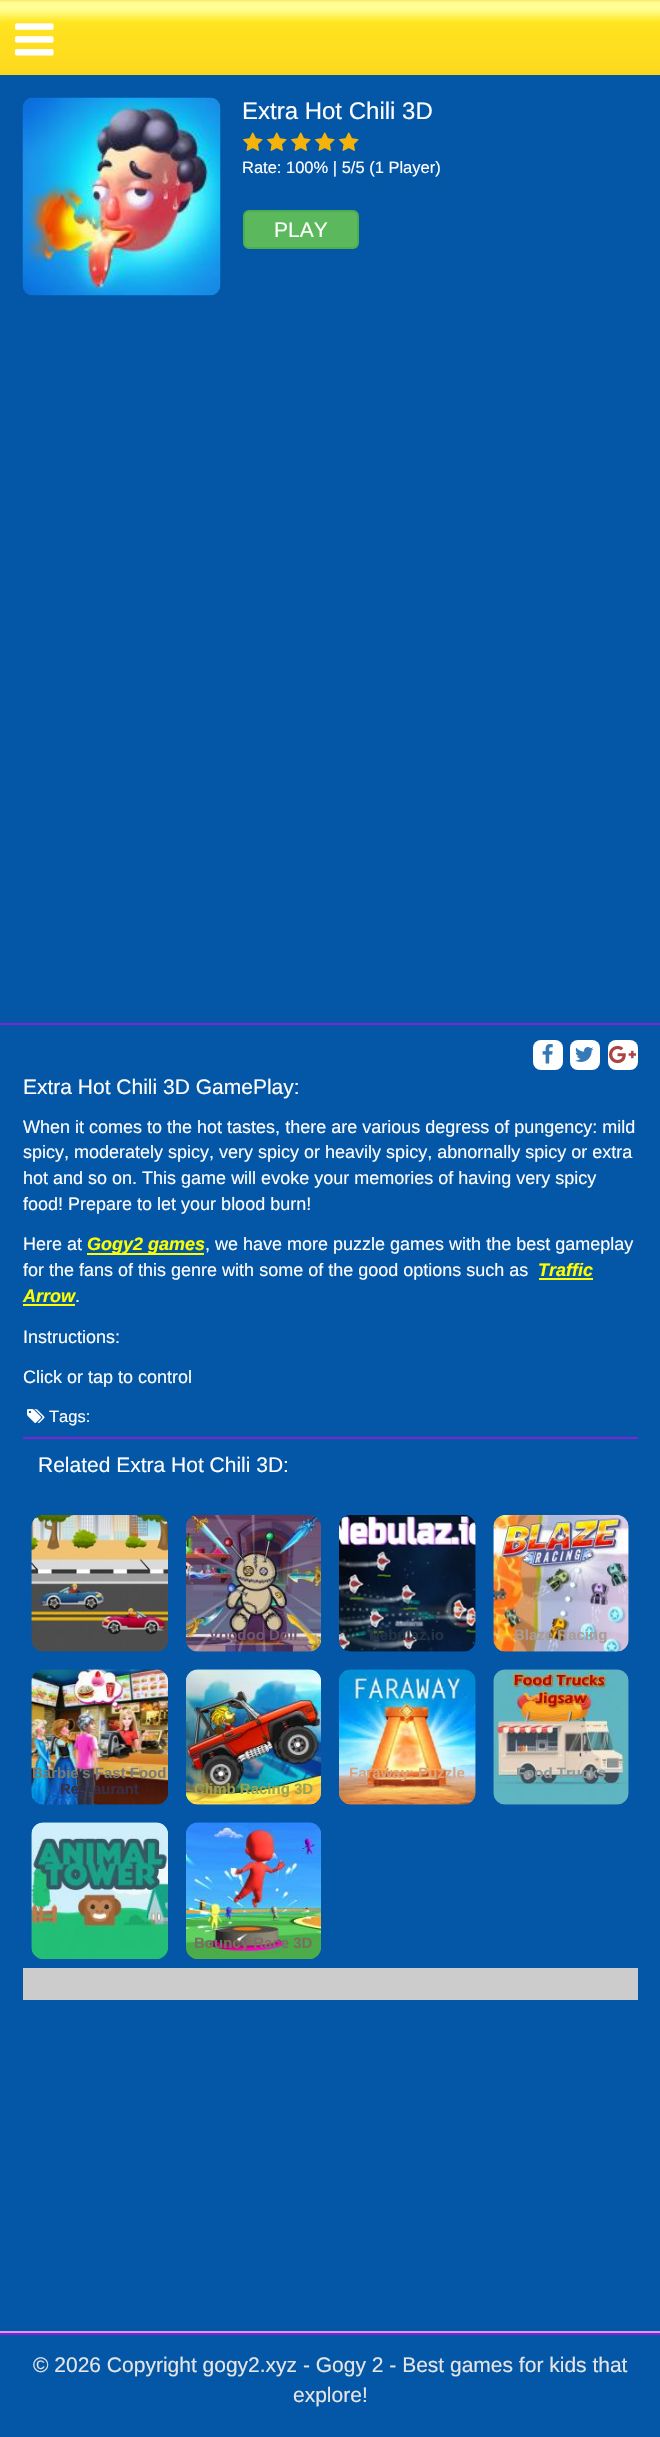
void draw(SkCanvas* canvas) {
  SkPaint paint;
  paint.setAntiAlias(true);
  auto face = [&](const char* family, int weight, float size, bool italic = false) {
    SkFontStyle style(weight, SkFontStyle::kNormal_Width,
      italic ? SkFontStyle::kItalic_Slant : SkFontStyle::kUpright_Slant);
    SkFont result(fontMgr->matchFamilyStyle(family, style), size);
    result.setSubpixel(true);
    return result;
  };
  auto paste = [&](const char* path, float x, float y, float w, float h) {
    auto image = SkImages::DeferredFromEncodedData(SkData::MakeFromFileName(path));
    canvas->drawImageRect(image, SkRect::MakeXYWH(x, y, w, h), SkSamplingOptions());
  };
  canvas->clear(0xff0457a7);
  paste("img/1.png", 0, 0, 660, 75);
  paste("img/2.png", 15, 23, 39, 33);
  paste("img/3.png", 22, 97, 199, 199);
  paste("img/4.png", 243, 132, 20, 19);
  paste("img/4.png", 267, 132, 20, 19);
  paste("img/4.png", 291, 132, 20, 19);
  paste("img/4.png", 315, 132, 20, 19);
  paste("img/4.png", 339, 132, 20, 19);
  paint.setColor(0xff5cb85c);
  canvas->drawRoundRect(SkRect::MakeXYWH(244, 211, 114, 37), 5, 5, paint);
  paint.setStroke(true);
  paint.setStrokeWidth(2);
  paint.setColor(0xff4cae4c);
  canvas->drawRoundRect(SkRect::MakeXYWH(244, 211, 114, 37), 5, 5, paint);
  paint.setStroke(false);
  paint.setColor(0xff8023d5);
  canvas->drawRect(SkRect::MakeXYWH(0, 1023, 660, 2), paint);
  paint.setColor(0xffffffff);
  canvas->drawRoundRect(SkRect::MakeXYWH(533, 1040, 30, 30), 8, 8, paint);
  paste("img/5.png", 542, 1044, 11, 20);
  canvas->drawRoundRect(SkRect::MakeXYWH(570, 1040, 30, 30), 8, 8, paint);
  paste("img/6.png", 575, 1047, 19, 15);
  canvas->drawRoundRect(SkRect::MakeXYWH(608, 1040, 30, 30), 8, 8, paint);
  paste("img/7.png", 609, 1045, 27, 19);
  {
    const struct { float x, y, w, h; SkColor color; } items[] = {
      {87, 1253, 117, 2, 0xfffdfe03},
      {539, 1278, 54, 2, 0xfffdfe03},
      {23, 1304, 52, 2, 0xfffdfe03},
    };
    for (auto [x, y, w, h, color] : items) {
      paint.setColor(color);
      canvas->drawRect(SkRect::MakeXYWH(x, y, w, h), paint);
    }
  }
  paste("img/8.png", 27, 1409, 18, 14);
  paint.setColor(0xff8023d5);
  canvas->drawRect(SkRect::MakeXYWH(23, 1437, 615, 2), paint);
  paste("img/9.png", 31, 1515, 137, 137);
  paste("img/10.png", 31, 1515, 137, 137);
  paste("img/11.png", 186, 1515, 135, 137);
  paste("img/12.png", 186, 1515, 135, 137);
  paste("img/13.png", 339, 1515, 137, 137);
  paste("img/14.png", 339, 1515, 137, 137);
  paste("img/15.png", 493, 1515, 136, 137);
  paste("img/16.png", 493, 1515, 136, 137);
  paste("img/17.png", 31, 1669, 137, 136);
  paste("img/18.png", 31, 1669, 137, 136);
  paste("img/19.png", 339, 1669, 137, 136);
  paste("img/20.png", 339, 1669, 137, 136);
  paste("img/21.png", 493, 1669, 136, 136);
  paste("img/22.png", 493, 1669, 136, 136);
  paste("img/23.png", 186, 1669, 135, 136);
  paste("img/24.png", 186, 1669, 135, 136);
  paste("img/25.png", 31, 1822, 137, 137);
  paste("img/26.png", 31, 1822, 137, 137);
  paste("img/27.png", 186, 1822, 135, 137);
  paste("img/28.png", 186, 1822, 135, 137);
  {
    const struct { float x, y, w, h; SkColor color; } items[] = {
      {23, 1968, 615, 32, 0xffcccccc},
      {0, 2333, 660, 2, 0xff8023d5},
      {0, 2331, 660, 2, 0xffd79bf4},
    };
    for (auto [x, y, w, h, color] : items) {
      paint.setColor(color);
      canvas->drawRect(SkRect::MakeXYWH(x, y, w, h), paint);
    }
  }
  auto f0 = face("Liberation Sans", 400, 24);
  paint.setColor(0xffffffff);
  canvas->drawString("Extra Hot Chili 3D", 242, 119, f0, paint);
  auto f1 = face("Liberation Sans", 400, 16.5f);
  canvas->drawString("Rate: 100% | 5/5 (1 Player)", 242, 173, f1, paint);
  auto f2 = face("Liberation Sans", 400, 21);
  canvas->drawString("PLAY", 274, 237, f2, paint);
  canvas->drawString("Extra Hot Chili 3D GamePlay:", 23, 1094, f2, paint);
  auto f3 = face("Liberation Sans", 400, 18);
  {
    const struct { const char* s; float x, y; } items[] = {
      {"When it comes to the hot tastes, there are various degress of pungency: mild", 23, 1133},
      {"spicy, moderately spicy, very spicy or heavily spicy, abnornally spicy or extra", 23, 1158},
      {"hot and so on. This game will evoke your memories of having very spicy", 23, 1184},
      {"food! Prepare to let your blood burn!", 23, 1210},
      {"Here at", 23, 1250},
    };
    for (auto [s, x, y] : items) {
      canvas->drawString(s, x, y, f3, paint);
    }
  }
  auto f4 = face("Liberation Sans", 700, 18, true);
  paint.setColor(0xfffdfe03);
  canvas->drawString("Gogy2 games", 87, 1250, f4, paint);
  paint.setColor(0xffffffff);
  canvas->drawString(", we have more puzzle games with the best gameplay", 205, 1250, f3, paint);
  canvas->drawString("for the fans of this genre with some of the good options such as", 23, 1276, f3, paint);
  paint.setColor(0xfffdfe03);
  canvas->drawString("Traffic", 538, 1276, f4, paint);
  canvas->drawString("Arrow", 23, 1302, f4, paint);
  paint.setColor(0xffffffff);
  {
    const struct { const char* s; float x, y; } items[] = {
      {".", 75, 1302},
      {"Instructions:", 23, 1343},
      {"Click or tap to control", 23, 1383},
    };
    for (auto [s, x, y] : items) {
      canvas->drawString(s, x, y, f3, paint);
    }
  }
  canvas->drawString("Tags:", 49, 1422, f1, paint);
  canvas->drawString("Related Extra Hot Chili 3D:", 38, 1472, f2, paint);
  auto f5 = face("Liberation Sans", 700, 15);
  paint.setColor(0xff6f586f);
  canvas->drawString("Voodoo Doll", 209, 1640, f5, paint);
  paint.setColor(0xff253345);
  canvas->drawString("Nebulaz.io", 369, 1640, f5, paint);
  paint.setColor(0xffab9d96);
  canvas->drawString("Blaze Racing", 514, 1640, f5, paint);
  paint.setColor(0xff797d71);
  canvas->drawString("Barbie's Fast Food", 32, 1778, f5, paint);
  paint.setColor(0xff372f45);
  canvas->drawString("Re", 60, 1794, f5, paint);
  canvas->drawString("aurant", 93, 1794, f5, paint);
  paint.setColor(0xffd8a57f);
  canvas->drawString("Faraway: Puzzle", 349, 1778, f5, paint);
  paint.setColor(0xff8e9998);
  canvas->drawString("Food Trucks", 516, 1778, f5, paint);
  paint.setColor(0xff9da251);
  canvas->drawString("Climb Racing 3D", 194, 1794, f5, paint);
  paint.setColor(0xff786e61);
  canvas->drawString("Bouncy Race 3D", 194, 1948, f5, paint);
  paint.setColor(0xffe5e5e5);
  canvas->drawString("© 2026 Copyright gogy2.xyz - Gogy 2 - Best games for kids that", 33, 2372, f2, paint);
  canvas->drawString("explore!", 293, 2402, f2, paint);
}
